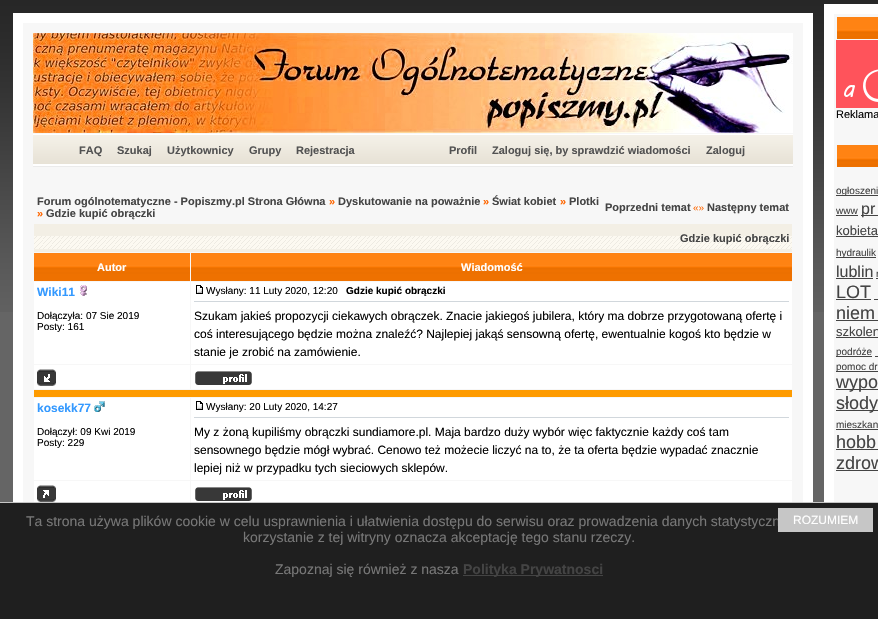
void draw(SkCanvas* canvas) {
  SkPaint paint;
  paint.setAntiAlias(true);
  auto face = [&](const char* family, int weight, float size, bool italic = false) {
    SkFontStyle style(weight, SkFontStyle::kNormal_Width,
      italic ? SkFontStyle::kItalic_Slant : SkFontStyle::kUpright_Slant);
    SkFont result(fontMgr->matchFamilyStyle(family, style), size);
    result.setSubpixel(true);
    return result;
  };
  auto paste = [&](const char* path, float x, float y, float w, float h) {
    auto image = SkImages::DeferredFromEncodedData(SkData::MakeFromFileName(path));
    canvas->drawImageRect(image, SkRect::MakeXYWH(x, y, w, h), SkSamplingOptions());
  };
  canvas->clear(0xff656565);
  paste("img/1.png", 0, 0, 878, 312);
  paint.setColor(0xfff7f7f7);
  canvas->drawRect(SkRect::MakeXYWH(834, 14, 44, 488), paint);
  paint.setStroke(true);
  paint.setStrokeWidth(10);
  paint.setColor(0xffffffff);
  canvas->drawRect(SkRect::MakeXYWH(829, 9, 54, 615), paint);
  paste("img/2.png", 837, 17, 41, 22);
  paste("img/3.png", 836, 40, 42, 68);
  paste("img/2.png", 837, 145, 41, 22);
  paint.setStroke(false);
  {
    const struct { float x, y, w, h; SkColor color; } items[] = {
      {836, 195, 42, 1, 0xff444444},
      {836, 215, 22, 1, 0xff444444},
      {861, 215, 17, 1, 0xff444444},
      {836, 236, 42, 1, 0xff444444},
      {836, 257, 40, 1, 0xff444444},
      {836, 278, 37, 1, 0xff444444},
      {876, 278, 2, 1, 0xff444444},
      {836, 299, 35, 1, 0xff444444},
      {874, 299, 4, 1, 0xff444444},
      {836, 320, 42, 1, 0xff444444},
      {836, 337, 42, 1, 0xff444444},
      {836, 356, 36, 1, 0xff444444},
      {875, 356, 3, 1, 0xff444444},
      {836, 371, 42, 1, 0xff444444},
      {836, 389, 42, 1, 0xff444444},
      {836, 410, 42, 1, 0xff444444},
      {836, 429, 42, 1, 0xff444444},
      {836, 449, 42, 1, 0xff444444},
      {836, 470, 42, 1, 0xff444444},
      {23, 23, 780, 479, 0xfff7f7f7},
    };
    for (auto [x, y, w, h, color] : items) {
      paint.setColor(color);
      canvas->drawRect(SkRect::MakeXYWH(x, y, w, h), paint);
    }
  }
  paint.setStroke(true);
  paint.setColor(0xffffffff);
  canvas->drawRect(SkRect::MakeXYWH(18, 18, 790, 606), paint);
  paste("img/4.png", 33, 33, 760, 100);
  paste("img/5.png", 33, 134, 760, 33);
  paste("img/6.png", 34, 224, 758, 28);
  paste("img/7.png", 34, 253, 156, 28);
  paste("img/8.png", 191, 253, 601, 28);
  paint.setStroke(false);
  canvas->drawRect(SkRect::MakeXYWH(34, 282, 156, 82), paint);
  paste("img/9.png", 80, 285, 7, 11);
  canvas->drawRect(SkRect::MakeXYWH(191, 282, 601, 82), paint);
  paste("img/10.png", 196, 285, 7, 9);
  paint.setColor(0xffd1d7dc);
  canvas->drawRect(SkRect::MakeXYWH(194, 301, 595, 1), paint);
  paint.setColor(0xffffffff);
  canvas->drawRect(SkRect::MakeXYWH(34, 365, 156, 24), paint);
  paste("img/11.png", 37, 369, 19, 17);
  canvas->drawRect(SkRect::MakeXYWH(191, 365, 601, 24), paint);
  paste("img/12.png", 195, 371, 57, 14);
  paint.setColor(0xfffe9b00);
  canvas->drawRect(SkRect::MakeXYWH(34, 390, 758, 7), paint);
  paint.setColor(0xffffffff);
  canvas->drawRect(SkRect::MakeXYWH(34, 398, 156, 82), paint);
  paste("img/13.png", 94, 401, 11, 11);
  canvas->drawRect(SkRect::MakeXYWH(191, 398, 601, 82), paint);
  paste("img/10.png", 196, 401, 7, 9);
  paint.setColor(0xffd1d7dc);
  canvas->drawRect(SkRect::MakeXYWH(194, 417, 595, 1), paint);
  paint.setColor(0xffffffff);
  canvas->drawRect(SkRect::MakeXYWH(34, 481, 156, 21), paint);
  paste("img/14.png", 37, 485, 19, 17);
  canvas->drawRect(SkRect::MakeXYWH(191, 481, 601, 21), paint);
  paste("img/12.png", 195, 487, 57, 14);
  {
    const struct { float x, y, w, h; SkColor color; } items[] = {
      {0, 503, 878, 116, 0xff1f1f1f},
      {0, 502, 878, 1, 0xffc6c6c6},
      {463, 575, 140, 1, 0xff444444},
    };
    for (auto [x, y, w, h, color] : items) {
      paint.setColor(color);
      canvas->drawRect(SkRect::MakeXYWH(x, y, w, h), paint);
    }
  }
  auto f0 = face("Liberation Sans", 400, 11);
  paint.setColor(0xff000000);
  canvas->drawString("Reklama", 836, 118, f0, paint);
  auto f1 = face("Liberation Sans", 400, 10);
  paint.setColor(0xff444444);
  canvas->drawString("ogłoszeni", 836, 194, f1, paint);
  canvas->drawString("www", 836, 214, f1, paint);
  auto f2 = face("Liberation Sans", 400, 16);
  canvas->drawString("pr", 861, 214, f2, paint);
  auto f3 = face("Liberation Sans", 400, 13);
  canvas->drawString("kobieta", 836, 235, f3, paint);
  canvas->drawString("hydraulik", 836, 256, f1, paint);
  canvas->drawString("lublin", 836, 277, f2, paint);
  canvas->drawString("r", 876, 277, f1, paint);
  auto f4 = face("Liberation Sans", 400, 18);
  canvas->drawString("LOT", 836, 298, f4, paint);
  canvas->drawString("niem", 836, 319, f4, paint);
  canvas->drawString("szkolen", 836, 336, f3, paint);
  canvas->drawString("podróże", 836, 355, f1, paint);
  canvas->drawString("pomoc dr", 836, 370, f1, paint);
  canvas->drawString("wypo", 836, 388, f4, paint);
  canvas->drawString("słody", 836, 409, f4, paint);
  canvas->drawString("mieszkan", 836, 428, f1, paint);
  canvas->drawString("hobb", 836, 448, f4, paint);
  canvas->drawString("zdrow", 836, 469, f4, paint);
  auto f5 = face("Liberation Sans", 700, 11);
  paint.setColor(0xff525252);
  {
    const struct { const char* s; float x, y; } items[] = {
      {"FAQ", 79, 154},
      {"Szukaj", 117, 154},
      {"Użytkownicy", 167, 154},
      {"Grupy", 249, 154},
      {"Rejestracja", 296, 154},
      {"Profil", 449, 154},
      {"Zaloguj się, by sprawdzić wiadomości", 492, 154},
      {"Zaloguj", 706, 154},
    };
    for (auto [s, x, y] : items) {
      canvas->drawString(s, x, y, f5, paint);
    }
  }
  paint.setColor(0xff444444);
  canvas->drawString("Forum ogólnotematyczne - Popiszmy.pl Strona Główna", 37, 205, f5, paint);
  paint.setColor(0xffff6600);
  canvas->drawString("»", 329, 205, f5, paint);
  paint.setColor(0xff444444);
  canvas->drawString("Dyskutowanie na poważnie", 338, 205, f5, paint);
  paint.setColor(0xffff6600);
  canvas->drawString("»", 483, 205, f5, paint);
  paint.setColor(0xff444444);
  canvas->drawString("Świat kobiet", 492, 205, f5, paint);
  paint.setColor(0xffff6600);
  canvas->drawString("»", 560, 205, f5, paint);
  paint.setColor(0xff444444);
  canvas->drawString("Plotki", 569, 205, f5, paint);
  paint.setColor(0xffff6600);
  canvas->drawString("»", 37, 217, f5, paint);
  paint.setColor(0xff444444);
  canvas->drawString("Gdzie kupić obrączki", 46, 217, f5, paint);
  canvas->drawString("Poprzedni temat", 605, 211, f5, paint);
  paint.setColor(0xffff6600);
  canvas->drawString("«»", 693, 211, f1, paint);
  paint.setColor(0xff444444);
  canvas->drawString("Następny temat", 707, 211, f5, paint);
  canvas->drawString("Gdzie kupić obrączki", 680, 242, f5, paint);
  paint.setColor(0xffffffff);
  canvas->drawString("Autor", 97, 271, f5, paint);
  canvas->drawString("Wiadomość", 461, 271, f5, paint);
  auto f6 = face("Liberation Sans", 700, 12);
  paint.setColor(0xff3399ff);
  canvas->drawString("Wiki11", 37, 296, f6, paint);
  paint.setColor(0xff000000);
  {
    const struct { const char* s; float x, y; } items[] = {
      {"Dołączyła: 07 Sie 2019", 37, 319},
      {"Posty: 161", 37, 330},
      {"Wysłany: 11 Luty 2020, 12:20", 206, 294},
    };
    for (auto [s, x, y] : items) {
      canvas->drawString(s, x, y, f1, paint);
    }
  }
  auto f7 = face("Liberation Sans", 700, 10);
  canvas->drawString("Gdzie kupić obrączki", 346, 294, f7, paint);
  auto f8 = face("Liberation Sans", 400, 12);
  {
    const struct { const char* s; float x, y; } items[] = {
      {"Szukam jakieś propozycji ciekawych obrączek. Znacie jakiegoś jubilera, który ma dobrze przygotowaną ofertę i", 194, 320},
      {"coś interesującego będzie można znaleźć? Najlepiej jakąś sensowną ofertę, ewentualnie kogoś kto będzie w", 194, 338},
      {"stanie je zrobić na zamówienie.", 194, 356},
    };
    for (auto [s, x, y] : items) {
      canvas->drawString(s, x, y, f8, paint);
    }
  }
  paint.setColor(0xff3399ff);
  canvas->drawString("kosekk77", 37, 412, f6, paint);
  paint.setColor(0xff000000);
  {
    const struct { const char* s; float x, y; } items[] = {
      {"Dołączył: 09 Kwi 2019", 37, 435},
      {"Posty: 229", 37, 446},
      {"Wysłany: 20 Luty 2020, 14:27", 206, 410},
    };
    for (auto [s, x, y] : items) {
      canvas->drawString(s, x, y, f1, paint);
    }
  }
  {
    const struct { const char* s; float x, y; } items[] = {
      {"My z żoną kupiliśmy obrączki sundiamore.pl. Maja bardzo duży wybór więc faktycznie każdy coś tam", 194, 436},
      {"sensownego będzie mógł wybrać. Cenowo też możecie liczyć na to, że ta oferta będzie wypadać znacznie", 194, 454},
      {"lepiej niż w przypadku tych sieciowych sklepów.", 194, 472},
    };
    for (auto [s, x, y] : items) {
      canvas->drawString(s, x, y, f8, paint);
    }
  }
  auto f9 = face("Liberation Sans", 400, 14);
  paint.setColor(0xff777777);
  {
    const struct { const char* s; float x, y; } items[] = {
      {"Ta strona używa plików cookie w celu usprawnienia i ułatwienia dostępu do serwisu oraz prowadzenia danych statystyczn", 26, 526},
      {"korzystanie z tej witryny oznacza akceptację tego stanu rzeczy.", 243, 542},
      {"Zapoznaj się również z nasza", 275, 574},
    };
    for (auto [s, x, y] : items) {
      canvas->drawString(s, x, y, f9, paint);
    }
  }
  auto f10 = face("Liberation Sans", 700, 14);
  paint.setColor(0xff444444);
  canvas->drawString("Polityka Prywatnosci", 463, 574, f10, paint);
  paint.setColor(0xffc6c6c6);
  canvas->drawRect(SkRect::MakeXYWH(778, 508, 95, 24), paint);
  paint.setColor(0xffffffff);
  canvas->drawString("ROZUMIEM", 793, 524, f8, paint);
}
